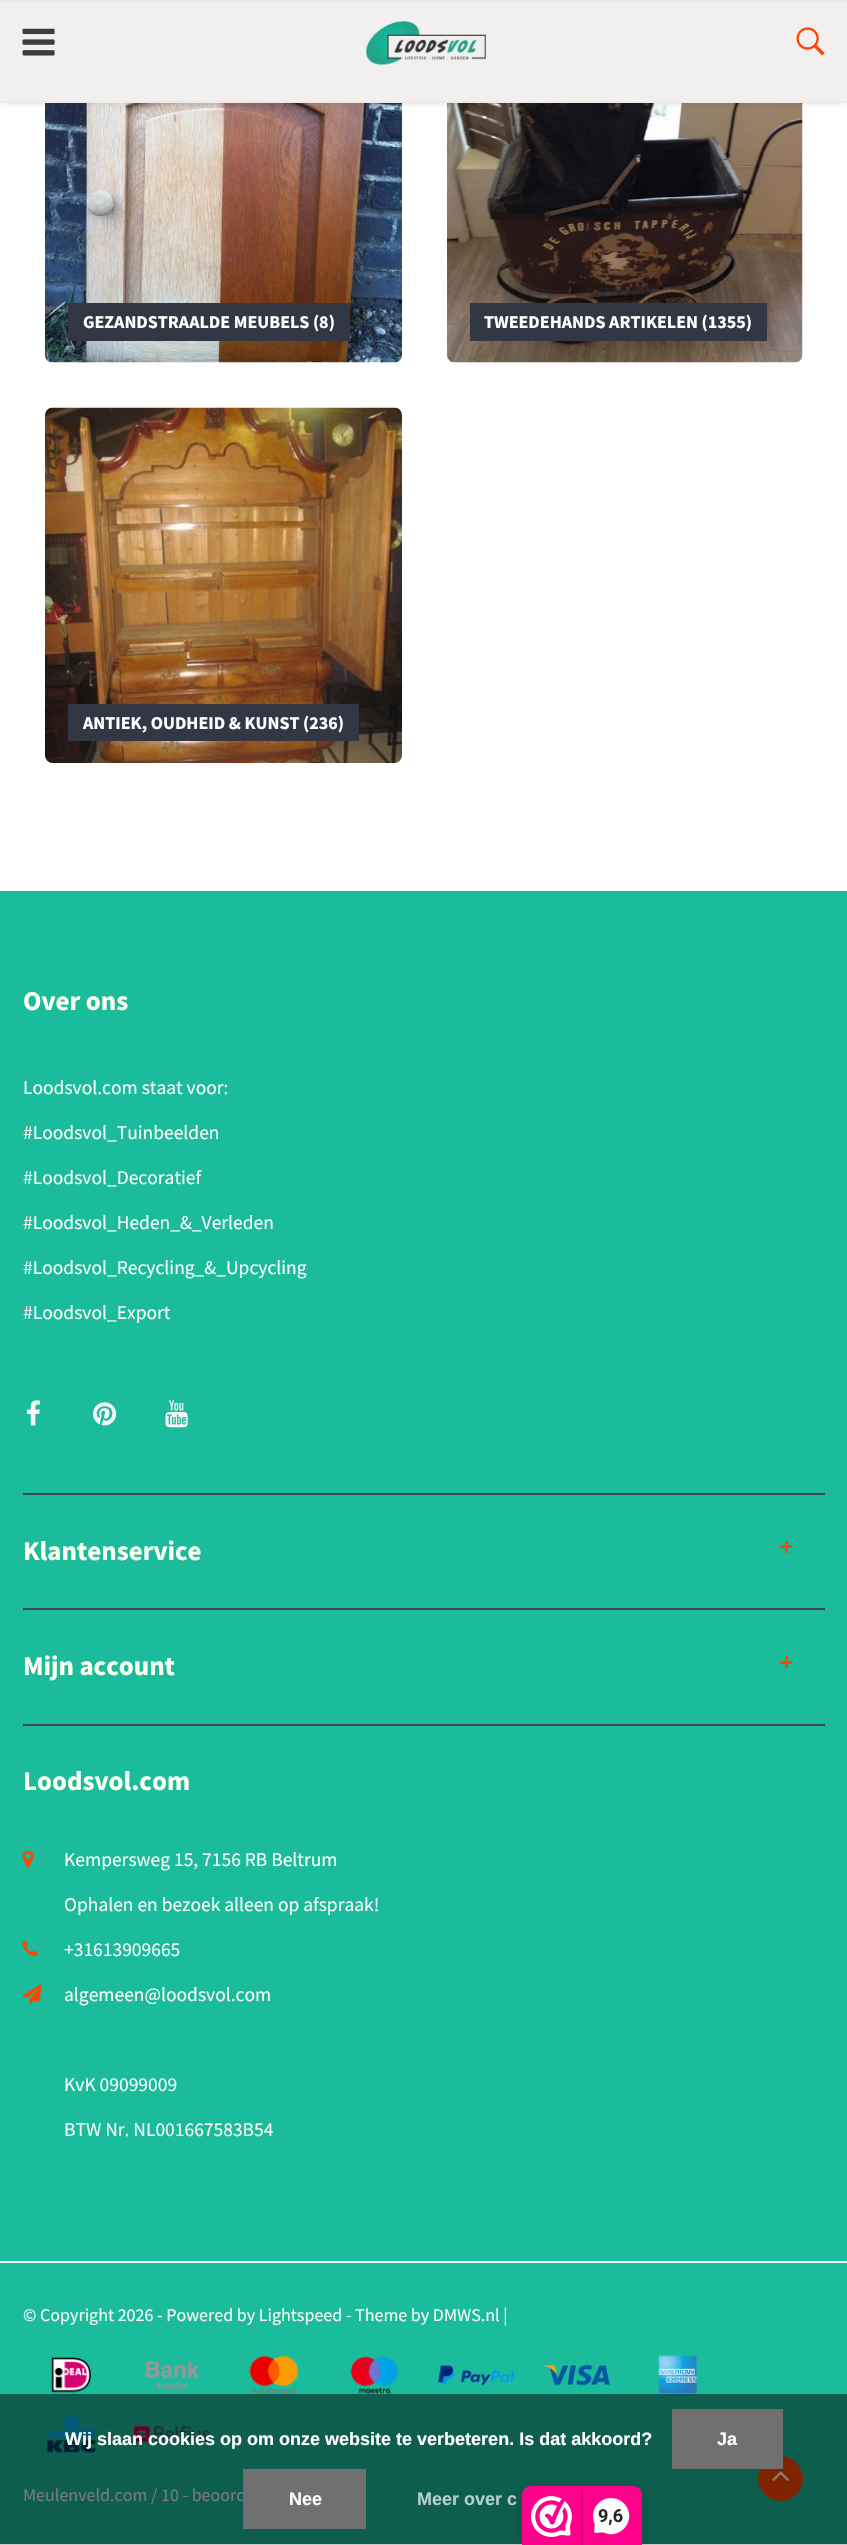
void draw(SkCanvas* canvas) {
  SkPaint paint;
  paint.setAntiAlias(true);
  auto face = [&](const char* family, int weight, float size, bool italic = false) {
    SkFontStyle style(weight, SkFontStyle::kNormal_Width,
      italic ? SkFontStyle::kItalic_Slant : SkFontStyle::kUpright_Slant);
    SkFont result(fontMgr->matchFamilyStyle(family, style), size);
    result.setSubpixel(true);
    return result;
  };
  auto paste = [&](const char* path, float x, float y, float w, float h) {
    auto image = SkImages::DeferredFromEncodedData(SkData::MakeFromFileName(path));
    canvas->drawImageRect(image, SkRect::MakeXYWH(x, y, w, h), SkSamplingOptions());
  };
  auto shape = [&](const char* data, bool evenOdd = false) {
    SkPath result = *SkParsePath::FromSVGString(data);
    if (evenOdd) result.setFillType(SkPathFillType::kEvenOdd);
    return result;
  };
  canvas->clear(0xffffffff);
  paste("img/4.png", 45, 103, 357, 260);
  paste("img/5.png", 447, 103, 356, 260);
  paint.setColor(0x33000000);
  paint.setMaskFilter(SkMaskFilter::MakeBlur(kNormal_SkBlurStyle, 4));
  canvas->drawRect(SkRect::MakeXYWH(2, 2, 844, 99), paint);
  paint.setMaskFilter(nullptr);
  {
    const struct { float x, y, w, h; SkColor color; } items[] = {
      {0, 2, 847, 99, 0xfff2efef},
      {0, 0, 847, 2, 0xffefe9e9},
      {0, 101, 847, 2, 0xffefe9e9},
    };
    for (auto [x, y, w, h, color] : items) {
      paint.setColor(color);
      canvas->drawRect(SkRect::MakeXYWH(x, y, w, h), paint);
    }
  }
  paste("img/1.png", 22, 28, 33, 28);
  paste("img/2.png", 366, 21, 120, 44);
  paste("img/3.png", 796, 27, 29, 29);
  paint.setColor(0xff333744);
  canvas->drawRect(SkRect::MakeXYWH(68, 303, 282, 38), paint);
  canvas->drawRect(SkRect::MakeXYWH(470, 303, 297, 38), paint);
  paste("img/6.png", 45, 407, 357, 356);
  {
    const struct { float x, y, w, h; SkColor color; } items[] = {
      {68, 704, 291, 37, 0xff333744},
      {0, 891, 847, 1503, 0xff1abc9c},
      {0, 2394, 847, 150, 0xff0d5e4e},
    };
    for (auto [x, y, w, h, color] : items) {
      paint.setColor(color);
      canvas->drawRect(SkRect::MakeXYWH(x, y, w, h), paint);
    }
  }
  paste("img/7.png", 26, 1400, 14, 26);
  paste("img/8.png", 93, 1402, 24, 24);
  paste("img/9.png", 165, 1400, 23, 28);
  {
    const struct { float x, y, w, h; SkColor color; } items[] = {
      {23, 1493, 802, 2, 0xff444752},
      {780, 1545, 12, 3, 0xffff4500},
      {785, 1541, 3, 12, 0xffff4500},
      {23, 1608, 802, 2, 0xff444752},
      {780, 1661, 12, 3, 0xffff4500},
      {785, 1656, 3, 12, 0xffff4500},
      {23, 1724, 802, 2, 0xff444752},
    };
    for (auto [x, y, w, h, color] : items) {
      paint.setColor(color);
      canvas->drawRect(SkRect::MakeXYWH(x, y, w, h), paint);
    }
  }
  paste("img/10.png", 22, 1850, 12, 18);
  paste("img/11.png", 22, 1940, 16, 16);
  paste("img/12.png", 22, 1984, 20, 20);
  paint.setColor(0xfff7f2f2);
  canvas->drawRect(SkRect::MakeXYWH(0, 2261, 847, 2), paint);
  paste("img/13.png", 51, 2357, 40, 36);
  paste("img/14.png", 145, 2361, 55, 30);
  paste("img/15.png", 249, 2356, 50, 38);
  paste("img/16.png", 350, 2356, 49, 38);
  paste("img/17.png", 438, 2365, 77, 20);
  paste("img/18.png", 543, 2365, 67, 21);
  paste("img/19.png", 658, 2355, 39, 39);
  paste("img/20.png", 47, 2414, 49, 39);
  paste("img/21.png", 133, 2426, 77, 17);
  paint.setColor(0xff802300);
  canvas->drawCircle(780.5f, 2478.5f, 22.5f, paint);
  paste("img/22.png", 772, 2471, 17, 10);
  paint.setColor(0xffcccccc);
  canvas->drawRect(SkRect::MakeXYWH(0, 2544, 847, 1), paint);
  paint.setColor(0xff707070);
  canvas->drawRect(SkRect::MakeXYWH(672, 2409, 111, 60), paint);
  paint.setColor(0x26000000);
  paint.setMaskFilter(SkMaskFilter::MakeBlur(kNormal_SkBlurStyle, 7.5f));
  canvas->drawRoundRect(SkRect::MakeXYWH(522, 2489, 120, 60), 9, 9, paint);
  paint.setMaskFilter(nullptr);
  paint.setColor(0xfffe008c);
  canvas->drawPath(shape("M531 2486H633C638 2486 642 2490 642 2495V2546H522V2495C522 2490 526 2486 531 2486Z"), paint);
  paste("img/23.png", 531, 2496, 41, 41);
  paint.setColor(0xffd80077);
  canvas->drawRect(SkRect::MakeXYWH(581, 2487, 2, 58), paint);
  paste("img/24.png", 592, 2497, 38, 38);
  auto f0 = face("Source Sans Pro", 700, 18);
  paint.setColor(0xffffffff);
  {
    const struct { const char* s; float x, y; } items[] = {
      {"GEZANDSTRAALDE MEUBELS (8)", 83, 328},
      {"TWEEDEHANDS ARTIKELEN (1355)", 484, 328},
      {"ANTIEK, OUDHEID & KUNST (236)", 83, 729},
    };
    for (auto [s, x, y] : items) {
      canvas->drawString(s, x, y, f0, paint);
    }
  }
  auto f1 = face("Source Sans Pro", 700, 27);
  paint.setColor(0xfffffff0);
  canvas->drawString("Over ons", 23, 1010, f1, paint);
  auto f2 = face("Source Sans Pro", 400, 19.5f);
  paint.setColor(0xfff5f6f5);
  {
    const struct { const char* s; float x, y; } items[] = {
      {"Loodsvol.com staat voor:", 23, 1094},
      {"#Loodsvol_Tuinbeelden", 23, 1139},
      {"#Loodsvol_Decoratief", 23, 1184},
      {"#Loodsvol_Heden_&_Verleden", 23, 1229},
      {"#Loodsvol_Recycling_&_Upcycling", 23, 1274},
      {"#Loodsvol_Export", 23, 1319},
    };
    for (auto [s, x, y] : items) {
      canvas->drawString(s, x, y, f2, paint);
    }
  }
  paint.setColor(0xfffffff0);
  {
    const struct { const char* s; float x, y; } items[] = {
      {"Klantenservice", 23, 1560},
      {"Mijn account", 23, 1675},
      {"Loodsvol.com", 23, 1790},
    };
    for (auto [s, x, y] : items) {
      canvas->drawString(s, x, y, f1, paint);
    }
  }
  paint.setColor(0xfff5f6f5);
  {
    const struct { const char* s; float x, y; } items[] = {
      {"Kempersweg 15, 7156 RB Beltrum", 64, 1866},
      {"Ophalen en bezoek alleen op afspraak!", 64, 1911},
      {"+31613909665", 64, 1956},
      {"algemeen@loodsvol.com", 64, 2001},
      {"KvK 09099009", 64, 2091},
      {"BTW Nr. NL001667583B54", 64, 2136},
    };
    for (auto [s, x, y] : items) {
      canvas->drawString(s, x, y, f2, paint);
    }
  }
  auto f3 = face("Source Sans Pro", 400, 18);
  canvas->drawString("© Copyright 2026 - Powered by Lightspeed - Theme by DMWS.nl |", 23, 2321, f3, paint);
  paint.setColor(0xff7b7b7b);
  canvas->drawString("Meulenveld.com / 10 - beoord", 23, 2501, f3, paint);
  auto f4 = face("Liberation Sans", 700, 18);
  paint.setColor(0xffffffff);
  canvas->drawString("Wij slaan cookies op om onze website te verbeteren. Is dat akkoord?", 65, 2445, f4, paint);
  canvas->drawString("Ja", 717, 2445, f4, paint);
  paint.setColor(0xff707070);
  canvas->drawRect(SkRect::MakeXYWH(243, 2469, 123, 60), paint);
  paint.setColor(0xffffffff);
  canvas->drawString("Nee", 289, 2505, f4, paint);
  paint.setColor(0xffb6cfca);
  canvas->drawString("Meer over c", 417, 2505, f4, paint);
  auto f5 = face("Roboto", 700, 18);
  paint.setColor(0xff272626);
  canvas->drawString("9,6", 598, 2522, f5, paint);
}
